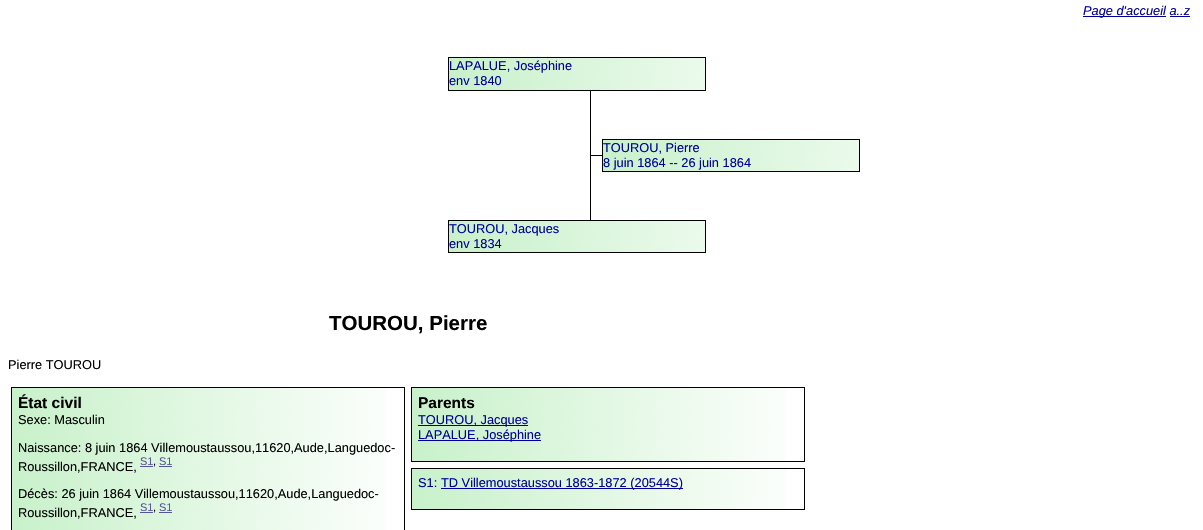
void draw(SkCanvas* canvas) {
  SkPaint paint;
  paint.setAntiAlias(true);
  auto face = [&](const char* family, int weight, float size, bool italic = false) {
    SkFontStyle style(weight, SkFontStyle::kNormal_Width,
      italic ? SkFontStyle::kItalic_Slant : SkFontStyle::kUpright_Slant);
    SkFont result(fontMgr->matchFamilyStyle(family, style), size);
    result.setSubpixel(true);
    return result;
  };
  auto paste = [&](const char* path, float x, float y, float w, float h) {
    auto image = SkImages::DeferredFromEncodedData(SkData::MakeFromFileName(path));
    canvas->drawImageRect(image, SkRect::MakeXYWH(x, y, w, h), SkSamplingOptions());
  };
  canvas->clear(0xffffffff);
  paint.setColor(0xff000099);
  canvas->drawRect(SkRect::MakeXYWH(1083, 16, 83, 1), paint);
  canvas->drawRect(SkRect::MakeXYWH(1170, 16, 20, 1), paint);
  paste("img/1.png", 449, 58, 256, 32);
  paint.setStroke(true);
  paint.setStrokeWidth(1);
  paint.setColor(0xff000000);
  canvas->drawRect(SkRect::MakeXYWH(448.5f, 57.5f, 257, 33), paint);
  paste("img/2.png", 603, 140, 256, 31);
  canvas->drawRect(SkRect::MakeXYWH(602.5f, 139.5f, 257, 32), paint);
  paint.setStroke(false);
  canvas->drawRect(SkRect::MakeXYWH(590, 155, 13, 1), paint);
  canvas->drawRect(SkRect::MakeXYWH(590, 91, 1, 131), paint);
  paste("img/2.png", 449, 221, 256, 31);
  paint.setStroke(true);
  canvas->drawRect(SkRect::MakeXYWH(448.5f, 220.5f, 257, 32), paint);
  paste("img/3.png", 12, 388, 374, 142);
  canvas->drawRect(SkRect::MakeXYWH(11.5f, 387.5f, 393, 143), paint);
  paint.setStroke(false);
  {
    const struct { float x, y, w, h; SkColor color; } items[] = {
      {140, 466, 13, 1, 0xff555599},
      {159, 466, 13, 1, 0xff555599},
      {140, 512, 13, 1, 0xff555599},
      {159, 512, 13, 1, 0xff555599},
    };
    for (auto [x, y, w, h, color] : items) {
      paint.setColor(color);
      canvas->drawRect(SkRect::MakeXYWH(x, y, w, h), paint);
    }
  }
  paste("img/4.png", 412, 388, 374, 73);
  paint.setStroke(true);
  paint.setColor(0xff000000);
  canvas->drawRect(SkRect::MakeXYWH(411.5f, 387.5f, 393, 74), paint);
  paint.setStroke(false);
  paint.setColor(0xff000099);
  canvas->drawRect(SkRect::MakeXYWH(418, 425, 110, 1), paint);
  canvas->drawRect(SkRect::MakeXYWH(418, 440, 123, 1), paint);
  paste("img/5.png", 412, 469, 374, 40);
  paint.setStroke(true);
  paint.setColor(0xff000000);
  canvas->drawRect(SkRect::MakeXYWH(411.5f, 468.5f, 393, 41), paint);
  paint.setStroke(false);
  paint.setColor(0xff000099);
  canvas->drawRect(SkRect::MakeXYWH(441, 488, 242, 1), paint);
  auto f0 = face("Liberation Sans", 400, 12.8f, true);
  canvas->drawString("Page d'accueil a..z", 1083, 15, f0, paint);
  auto f1 = face("Liberation Sans", 400, 12.8f);
  {
    const struct { const char* s; float x, y; } items[] = {
      {"LAPALUE, Joséphine", 449, 70},
      {"env 1840", 449, 85},
      {"TOUROU, Pierre", 603, 152},
      {"8 juin 1864 -- 26 juin 1864", 603, 167},
      {"TOUROU, Jacques", 449, 233},
      {"env 1834", 449, 248},
    };
    for (auto [s, x, y] : items) {
      canvas->drawString(s, x, y, f1, paint);
    }
  }
  auto f2 = face("Liberation Sans", 700, 20.5f);
  paint.setColor(0xff000000);
  canvas->drawString("TOUROU, Pierre", 329, 330, f2, paint);
  canvas->drawString("Pierre TOUROU", 8, 369, f1, paint);
  auto f3 = face("Liberation Sans", 700, 15.5f);
  canvas->drawString("État civil", 18, 408, f3, paint);
  {
    const struct { const char* s; float x, y; } items[] = {
      {"Sexe: Masculin", 18, 424},
      {"Naissance: 8 juin 1864 Villemoustaussou,11620,Aude,Languedoc-", 18, 452},
      {"Roussillon,FRANCE,", 18, 471},
    };
    for (auto [s, x, y] : items) {
      canvas->drawString(s, x, y, f1, paint);
    }
  }
  auto f4 = face("Liberation Sans", 400, 11);
  paint.setColor(0xff555599);
  canvas->drawString("S1", 140, 465, f4, paint);
  paint.setColor(0xff000000);
  canvas->drawString(",", 153, 465, f4, paint);
  paint.setColor(0xff555599);
  canvas->drawString("S1", 159, 465, f4, paint);
  paint.setColor(0xff000000);
  canvas->drawString("Décès: 26 juin 1864 Villemoustaussou,11620,Aude,Languedoc-", 18, 498, f1, paint);
  canvas->drawString("Roussillon,FRANCE,", 18, 517, f1, paint);
  paint.setColor(0xff555599);
  canvas->drawString("S1", 140, 511, f4, paint);
  paint.setColor(0xff000000);
  canvas->drawString(",", 153, 511, f4, paint);
  paint.setColor(0xff555599);
  canvas->drawString("S1", 159, 511, f4, paint);
  paint.setColor(0xff000000);
  canvas->drawString("Parents", 418, 408, f3, paint);
  paint.setColor(0xff000099);
  {
    const struct { const char* s; float x, y; } items[] = {
      {"TOUROU, Jacques", 418, 424},
      {"LAPALUE, Joséphine", 418, 439},
      {"S1:", 418, 487},
      {"TD Villemoustaussou 1863-1872 (20544S)", 441, 487},
    };
    for (auto [s, x, y] : items) {
      canvas->drawString(s, x, y, f1, paint);
    }
  }
}
